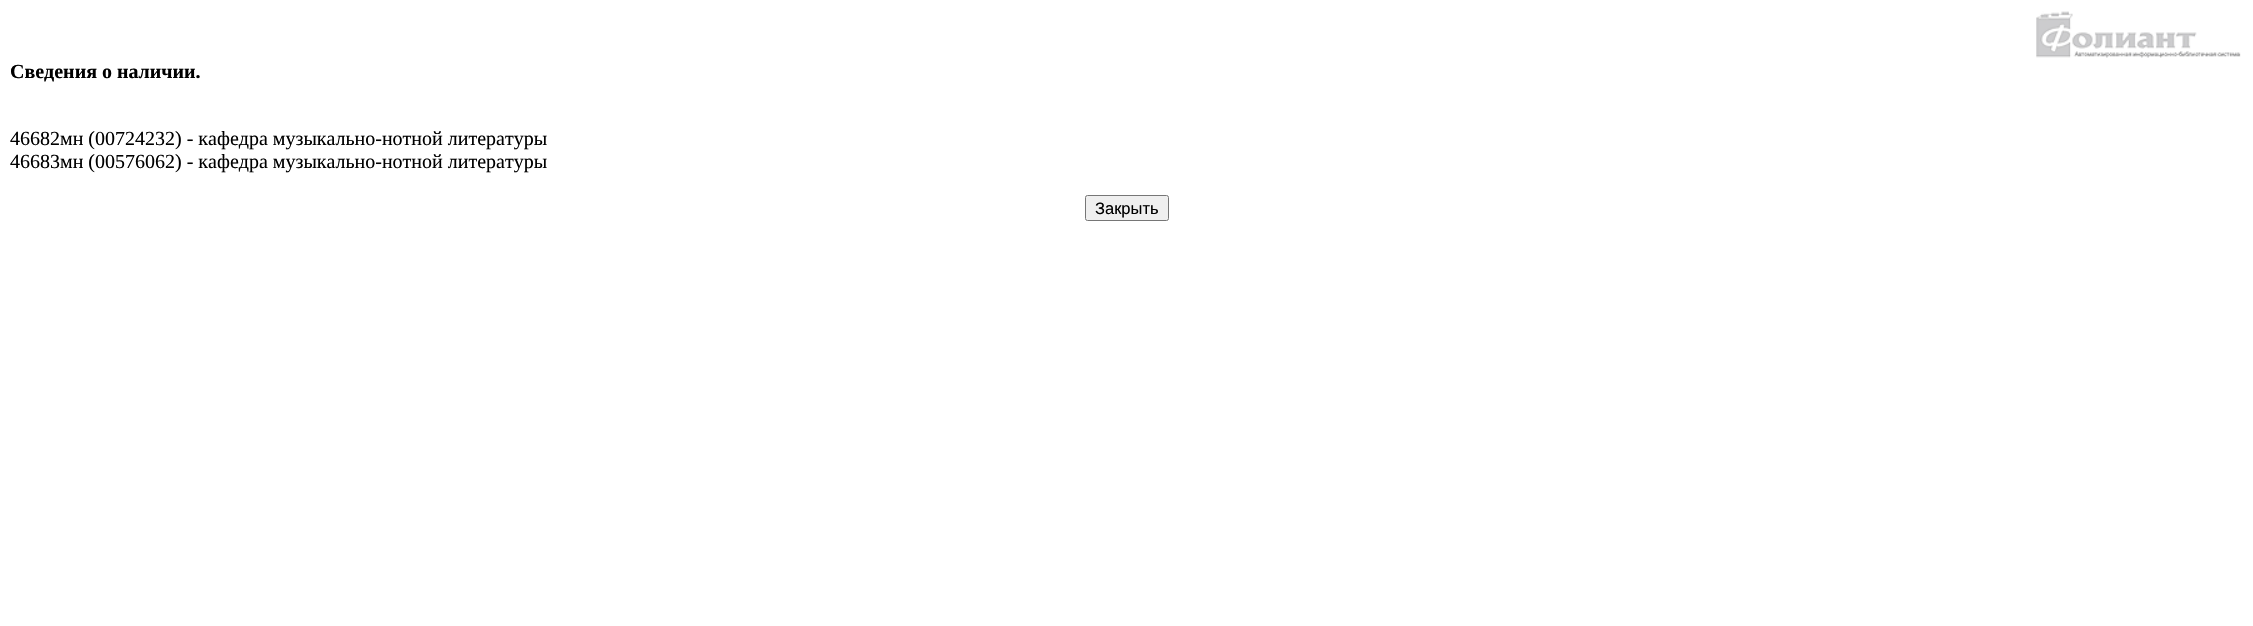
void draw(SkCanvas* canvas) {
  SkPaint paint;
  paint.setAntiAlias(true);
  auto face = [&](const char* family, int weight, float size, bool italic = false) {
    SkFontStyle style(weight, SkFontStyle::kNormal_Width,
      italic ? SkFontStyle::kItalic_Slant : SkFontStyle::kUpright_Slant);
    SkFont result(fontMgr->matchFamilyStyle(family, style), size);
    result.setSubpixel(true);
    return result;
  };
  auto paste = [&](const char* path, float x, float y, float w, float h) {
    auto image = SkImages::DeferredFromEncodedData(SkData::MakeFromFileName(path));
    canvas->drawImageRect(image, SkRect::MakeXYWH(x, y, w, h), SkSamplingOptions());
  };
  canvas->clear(0xffffffff);
  paste("img/1.png", 2036, 11, 205, 47);
  paint.setColor(0xffefefef);
  canvas->drawRoundRect(SkRect::MakeXYWH(1085.5f, 195.5f, 83, 25), 2, 2, paint);
  paint.setStroke(true);
  paint.setStrokeWidth(1);
  paint.setColor(0xff767676);
  canvas->drawRoundRect(SkRect::MakeXYWH(1085.5f, 195.5f, 83, 25), 2, 2, paint);
  auto f0 = face("Liberation Serif", 700, 20);
  paint.setStroke(false);
  paint.setColor(0xff000000);
  canvas->drawString("Сведения о наличии.", 10, 78, f0, paint);
  auto f1 = face("Liberation Serif", 400, 20);
  canvas->drawString("46682мн (00724232) - кафедра музыкально-нотной литературы", 10, 145, f1, paint);
  canvas->drawString("46683мн (00576062) - кафедра музыкально-нотной литературы", 10, 168, f1, paint);
  auto f2 = face("Liberation Sans", 400, 16.5f);
  canvas->drawString("Закрыть", 1095, 214, f2, paint);
}
